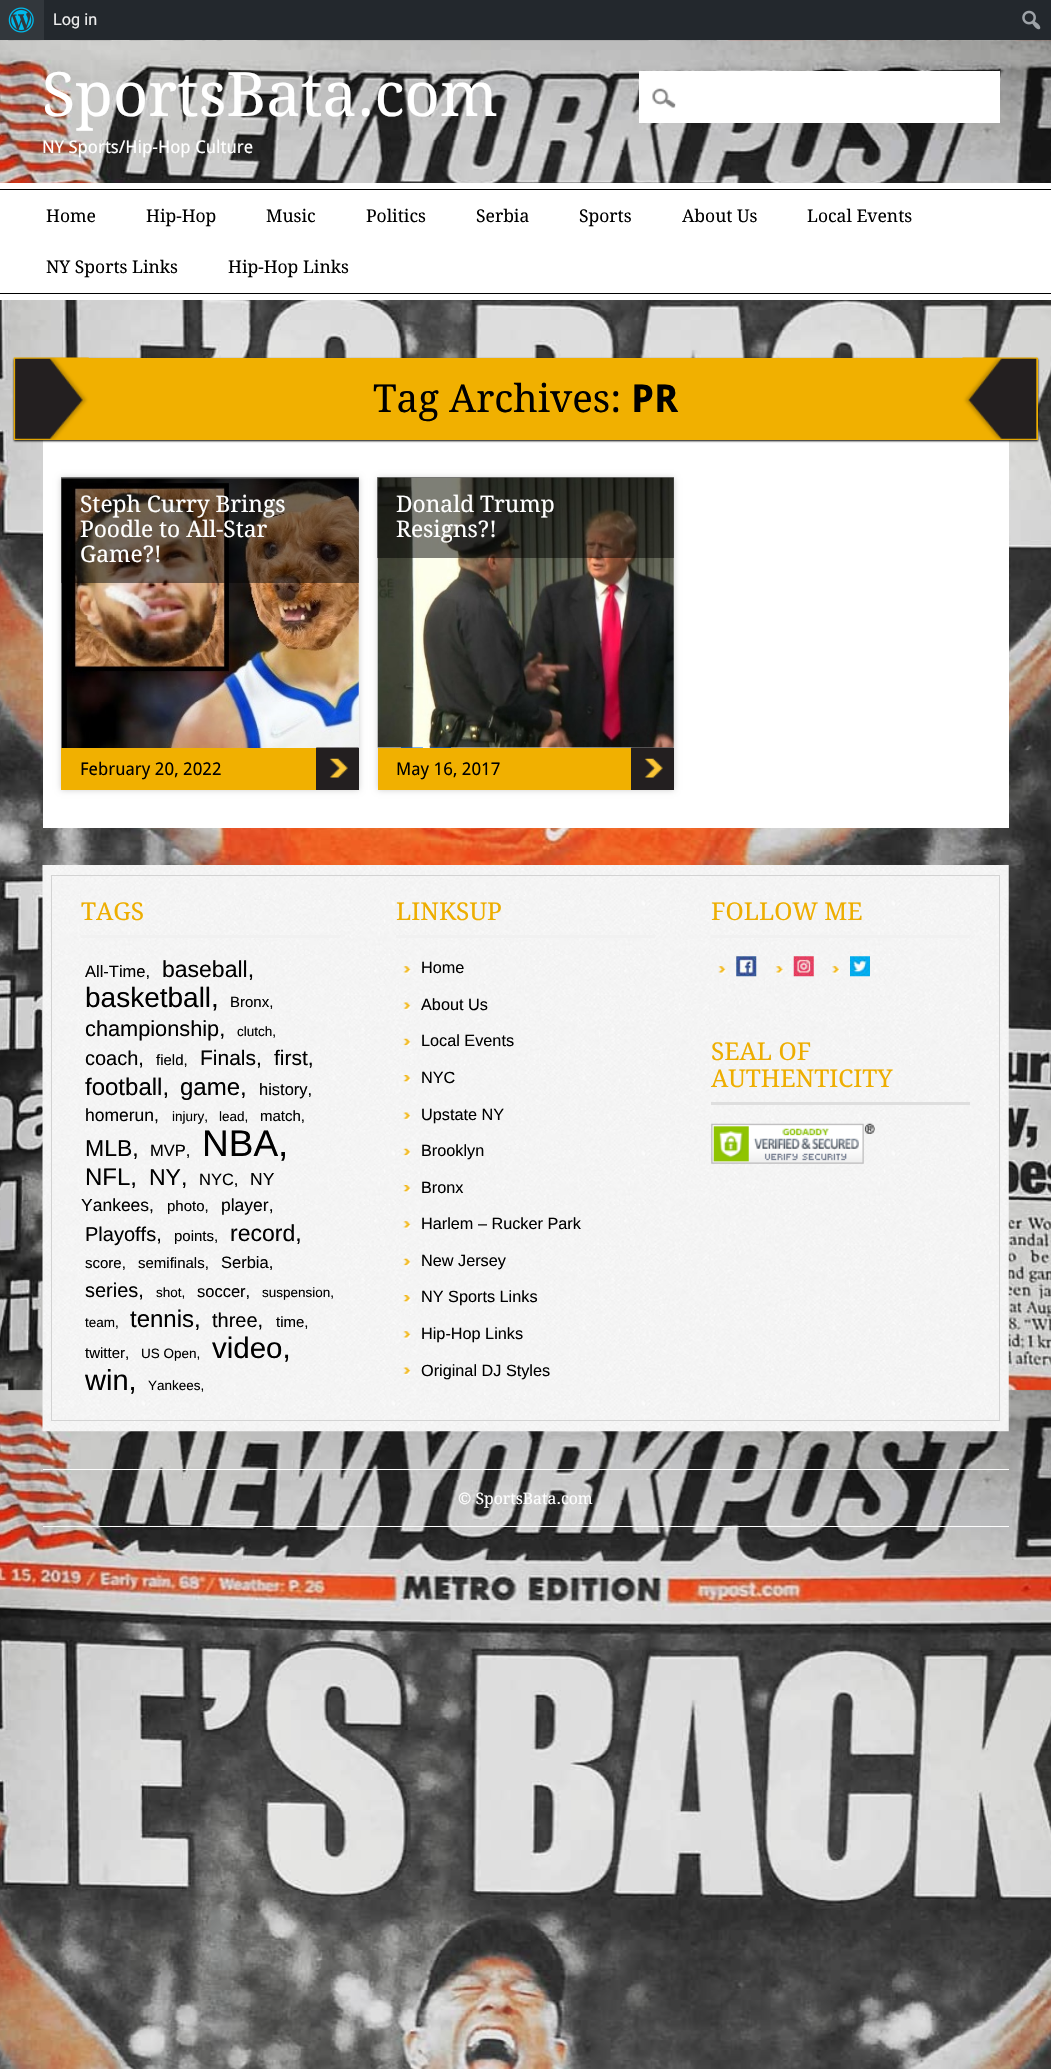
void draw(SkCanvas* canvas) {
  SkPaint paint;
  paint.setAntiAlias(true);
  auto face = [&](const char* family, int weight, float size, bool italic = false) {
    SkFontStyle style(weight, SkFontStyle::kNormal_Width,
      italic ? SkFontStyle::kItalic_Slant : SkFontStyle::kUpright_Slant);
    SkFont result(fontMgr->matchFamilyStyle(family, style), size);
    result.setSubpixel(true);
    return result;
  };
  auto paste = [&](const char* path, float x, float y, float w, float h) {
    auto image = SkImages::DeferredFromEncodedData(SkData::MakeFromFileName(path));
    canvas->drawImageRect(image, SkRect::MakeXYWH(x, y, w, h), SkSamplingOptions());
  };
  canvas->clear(0xffffffff);
  paste("img/1.png", 0, 40, 1051, 2029);
  paint.setColor(0xff23282d);
  canvas->drawRect(SkRect::MakeXYWH(44, 0, 1007, 40), paint);
  paint.setColor(0xff32373c);
  canvas->drawRect(SkRect::MakeXYWH(0, 0, 44, 40), paint);
  paste("img/2.png", 8, 7, 26, 26);
  paste("img/3.png", 1022, 10, 19, 20);
  paint.setColor(0xffffffff);
  canvas->drawRect(SkRect::MakeXYWH(639, 71, 361, 52), paint);
  paste("img/4.png", 652, 88, 24, 20);
  {
    const struct { float x, y, w, h; SkColor color; } items[] = {
      {0, 183, 1051, 117, 0xffffffff},
      {0, 189, 1051, 1, 0xff000000},
      {0, 293, 1051, 1, 0xff000000},
      {43, 440, 966, 388, 0xffffffff},
    };
    for (auto [x, y, w, h, color] : items) {
      paint.setColor(color);
      canvas->drawRect(SkRect::MakeXYWH(x, y, w, h), paint);
    }
  }
  paint.setColor(0xff000000);
  paint.setMaskFilter(SkMaskFilter::MakeBlur(kNormal_SkBlurStyle, 1));
  canvas->drawRect(SkRect::MakeXYWH(14, 359, 1024, 82), paint);
  paint.setMaskFilter(nullptr);
  paint.setColor(0xfff1b000);
  canvas->drawRect(SkRect::MakeXYWH(88, 358, 950, 82), paint);
  paste("img/5.png", 13, 357, 76, 83);
  paste("img/6.png", 962, 357, 76, 83);
  paint.setColor(0xffcecece);
  paint.setMaskFilter(SkMaskFilter::MakeBlur(kNormal_SkBlurStyle, 3));
  canvas->drawRect(SkRect::MakeXYWH(61, 478, 298, 312), paint);
  paint.setMaskFilter(nullptr);
  paste("img/7.png", 61, 478, 298, 270);
  paste("img/8.png", 61, 478, 298, 270);
  {
    const struct { float x, y, w, h; SkColor color; } items[] = {
      {61, 477, 298, 106, 0x80000000},
      {61, 748, 255, 42, 0xfff1b000},
      {316, 748, 43, 42, 0xff231f20},
    };
    for (auto [x, y, w, h, color] : items) {
      paint.setColor(color);
      canvas->drawRect(SkRect::MakeXYWH(x, y, w, h), paint);
    }
  }
  paste("img/9.png", 316, 747, 43, 31);
  paint.setColor(0xffcecece);
  paint.setMaskFilter(SkMaskFilter::MakeBlur(kNormal_SkBlurStyle, 3));
  canvas->drawRect(SkRect::MakeXYWH(378, 478, 296, 312), paint);
  paint.setMaskFilter(nullptr);
  paste("img/10.png", 378, 478, 296, 270);
  paint.setColor(0xff0166ff);
  canvas->drawRect(SkRect::MakeXYWH(401, 747, 50, 1), paint);
  paint.setColor(0xffffffff);
  canvas->drawRect(SkRect::MakeXYWH(423, 741, 7, 7), paint);
  paste("img/11.png", 377, 477, 297, 271);
  {
    const struct { float x, y, w, h; SkColor color; } items[] = {
      {377, 477, 297, 81, 0x80000000},
      {378, 748, 253, 42, 0xfff1b000},
      {631, 748, 43, 42, 0xff231f20},
    };
    for (auto [x, y, w, h, color] : items) {
      paint.setColor(color);
      canvas->drawRect(SkRect::MakeXYWH(x, y, w, h), paint);
    }
  }
  paste("img/12.png", 631, 747, 43, 31);
  paste("img/13.png", 42, 865, 967, 567);
  paint.setStroke(true);
  paint.setStrokeWidth(1);
  paint.setColor(0xffd3d3d3);
  canvas->drawRect(SkRect::MakeXYWH(51.5f, 875.5f, 948, 545), paint);
  paint.setStroke(false);
  paint.setColor(0xfff1f1f1);
  canvas->drawRect(SkRect::MakeXYWH(81, 935, 259, 3), paint);
  canvas->drawRect(SkRect::MakeXYWH(396, 935, 259, 3), paint);
  paste("img/14.png", 403, 966, 8, 8);
  paste("img/15.png", 403, 1002, 8, 8);
  paste("img/16.png", 403, 1038, 8, 8);
  paste("img/17.png", 403, 1075, 8, 8);
  paste("img/18.png", 403, 1112, 8, 8);
  paste("img/19.png", 403, 1148, 8, 8);
  paste("img/20.png", 403, 1185, 8, 8);
  paste("img/21.png", 403, 1221, 8, 8);
  paste("img/22.png", 403, 1258, 8, 8);
  paste("img/23.png", 403, 1295, 8, 8);
  paste("img/24.png", 403, 1331, 8, 8);
  paste("img/25.png", 403, 1367, 8, 8);
  canvas->drawRect(SkRect::MakeXYWH(711, 935, 259, 3), paint);
  paste("img/26.png", 718, 966, 8, 8);
  paste("img/27.png", 736, 956, 21, 21);
  paste("img/28.png", 776, 966, 8, 8);
  paste("img/29.png", 793, 956, 21, 21);
  paste("img/30.png", 832, 966, 8, 8);
  paste("img/31.png", 850, 956, 20, 21);
  paint.setColor(0xffdedede);
  canvas->drawRect(SkRect::MakeXYWH(711, 1102, 259, 3), paint);
  paste("img/32.png", 711, 1123, 164, 41);
  paint.setColor(0xffffffff);
  canvas->drawRect(SkRect::MakeXYWH(43, 1469, 966, 1), paint);
  canvas->drawRect(SkRect::MakeXYWH(43, 1526, 966, 1), paint);
  auto f0 = face("Roboto", 400, 16.25f);
  paint.setColor(0xffeeeeee);
  canvas->drawString("Log in", 53, 25, f0, paint);
  auto f1 = face("Droid Serif", 400, 61.25f);
  paint.setColor(0xffffffff);
  canvas->drawString("SportsBata.com", 42, 116, f1, paint);
  auto f2 = face("Droid Sans", 400, 17.5f);
  canvas->drawString("NY Sports/Hip-Hop Culture", 42, 153, f2, paint);
  auto f3 = face("Droid Serif", 400, 17.5f);
  paint.setColor(0xff000000);
  {
    const struct { const char* s; float x, y; } items[] = {
      {"Home", 46, 222},
      {"Hip-Hop", 146, 222},
      {"Music", 266, 222},
      {"Politics", 366, 222},
      {"Serbia", 476, 222},
      {"Sports", 579, 222},
      {"About Us", 682, 222},
      {"Local Events", 807, 222},
      {"NY Sports Links", 46, 273},
      {"Hip-Hop Links", 228, 273},
    };
    for (auto [s, x, y] : items) {
      canvas->drawString(s, x, y, f3, paint);
    }
  }
  auto f4 = face("Droid Serif", 400, 38.5f);
  canvas->drawString("Tag Archives:", 373, 412, f4, paint);
  auto f5 = face("Droid Sans", 700, 38.5f);
  canvas->drawString("PR", 631, 412, f5, paint);
  auto f6 = face("Droid Serif", 400, 22.75f);
  paint.setColor(0xffffffff);
  {
    const struct { const char* s; float x, y; } items[] = {
      {"Steph Curry Brings", 80, 512},
      {"Poodle to All-Star", 80, 537},
      {"Game?!", 80, 562},
    };
    for (auto [s, x, y] : items) {
      canvas->drawString(s, x, y, f6, paint);
    }
  }
  paint.setColor(0xff000000);
  canvas->drawString("February 20, 2022", 80, 775, f2, paint);
  paint.setColor(0xffffffff);
  canvas->drawString("Donald Trump", 396, 512, f6, paint);
  canvas->drawString("Resigns?!", 396, 537, f6, paint);
  paint.setColor(0xff000000);
  canvas->drawString("May 16, 2017", 396, 775, f2, paint);
  auto f7 = face("Droid Serif", 400, 24.5f);
  paint.setColor(0xffeeae00);
  canvas->drawString("TAGS", 81, 920, f7, paint);
  auto f8 = face("Liberation Sans", 400, 16.5f);
  paint.setColor(0xff000000);
  canvas->drawString("All-Time,", 85, 977, f8, paint);
  auto f9 = face("Liberation Sans", 400, 23);
  canvas->drawString("baseball,", 162, 977, f9, paint);
  auto f10 = face("Liberation Sans", 400, 28);
  canvas->drawString("basketball,", 85, 1007, f10, paint);
  auto f11 = face("Liberation Sans", 400, 15);
  canvas->drawString("Bronx,", 230, 1007, f11, paint);
  auto f12 = face("Liberation Sans", 400, 21.75f);
  canvas->drawString("championship,", 85, 1036, f12, paint);
  auto f13 = face("Liberation Sans", 400, 13.5f);
  canvas->drawString("clutch,", 237, 1036, f13, paint);
  auto f14 = face("Liberation Sans", 400, 20);
  canvas->drawString("coach,", 85, 1065, f14, paint);
  canvas->drawString("field,", 156, 1065, f11, paint);
  auto f15 = face("Liberation Sans", 400, 21);
  canvas->drawString("Finals,", 200, 1065, f15, paint);
  canvas->drawString("first,", 274, 1065, f15, paint);
  auto f16 = face("Liberation Sans", 400, 24);
  canvas->drawString("football,", 85, 1095, f16, paint);
  canvas->drawString("game,", 180, 1095, f16, paint);
  canvas->drawString("history,", 259, 1095, f8, paint);
  auto f17 = face("Liberation Sans", 400, 17.5f);
  canvas->drawString("homerun,", 85, 1121, f17, paint);
  canvas->drawString("injury,", 172, 1121, f13, paint);
  canvas->drawString("lead,", 219, 1121, f13, paint);
  canvas->drawString("match,", 260, 1121, f11, paint);
  canvas->drawString("MLB,", 85, 1156, f9, paint);
  canvas->drawString("MVP,", 150, 1156, f8, paint);
  auto f18 = face("Liberation Sans", 400, 37);
  canvas->drawString("NBA,", 202, 1156, f18, paint);
  canvas->drawString("NFL,", 85, 1185, f16, paint);
  canvas->drawString("NY,", 149, 1185, f9, paint);
  canvas->drawString("NYC,", 199, 1185, f8, paint);
  canvas->drawString("NY", 250, 1185, f17, paint);
  canvas->drawString("Yankees,", 81, 1211, f17, paint);
  canvas->drawString("photo,", 167, 1211, f11, paint);
  canvas->drawString("player,", 221, 1211, f17, paint);
  canvas->drawString("Playoffs,", 85, 1241, f14, paint);
  canvas->drawString("points,", 174, 1241, f11, paint);
  canvas->drawString("record,", 230, 1241, f9, paint);
  canvas->drawString("score,", 85, 1268, f11, paint);
  canvas->drawString("semifinals,", 138, 1268, f11, paint);
  canvas->drawString("Serbia,", 221, 1268, f8, paint);
  canvas->drawString("series,", 85, 1297, f14, paint);
  canvas->drawString("shot,", 156, 1297, f13, paint);
  canvas->drawString("soccer,", 197, 1297, f8, paint);
  canvas->drawString("suspension,", 262, 1297, f13, paint);
  canvas->drawString("team,", 85, 1327, f13, paint);
  canvas->drawString("tennis,", 130, 1327, f16, paint);
  canvas->drawString("three,", 212, 1327, f14, paint);
  canvas->drawString("time,", 276, 1327, f11, paint);
  canvas->drawString("twitter,", 85, 1358, f11, paint);
  canvas->drawString("US Open,", 141, 1358, f13, paint);
  auto f19 = face("Liberation Sans", 400, 29.5f);
  canvas->drawString("video,", 212, 1358, f19, paint);
  auto f20 = face("Liberation Sans", 400, 29);
  canvas->drawString("win,", 85, 1390, f20, paint);
  canvas->drawString("Yankees,", 148, 1390, f13, paint);
  paint.setColor(0xffeeae00);
  canvas->drawString("LINKSUP", 396, 920, f7, paint);
  auto f21 = face("Liberation Sans", 400, 16.25f);
  paint.setColor(0xff000000);
  {
    const struct { const char* s; float x, y; } items[] = {
      {"Home", 421, 973},
      {"About Us", 421, 1010},
      {"Local Events", 421, 1046},
      {"NYC", 421, 1083},
      {"Upstate NY", 421, 1120},
      {"Brooklyn", 421, 1156},
      {"Bronx", 421, 1193},
      {"Harlem – Rucker Park", 421, 1229},
      {"New Jersey", 421, 1266},
      {"NY Sports Links", 421, 1302},
      {"Hip-Hop Links", 421, 1339},
      {"Original DJ Styles", 421, 1376},
    };
    for (auto [s, x, y] : items) {
      canvas->drawString(s, x, y, f21, paint);
    }
  }
  paint.setColor(0xffeeae00);
  {
    const struct { const char* s; float x, y; } items[] = {
      {"FOLLOW ME", 711, 920},
      {"SEAL OF", 711, 1060},
      {"AUTHENTICITY", 711, 1087},
    };
    for (auto [s, x, y] : items) {
      canvas->drawString(s, x, y, f7, paint);
    }
  }
  auto f22 = face("Droid Serif", 400, 15.75f);
  paint.setColor(0xffffffff);
  canvas->drawString("© SportsBata.com", 458, 1504, f22, paint);
}
